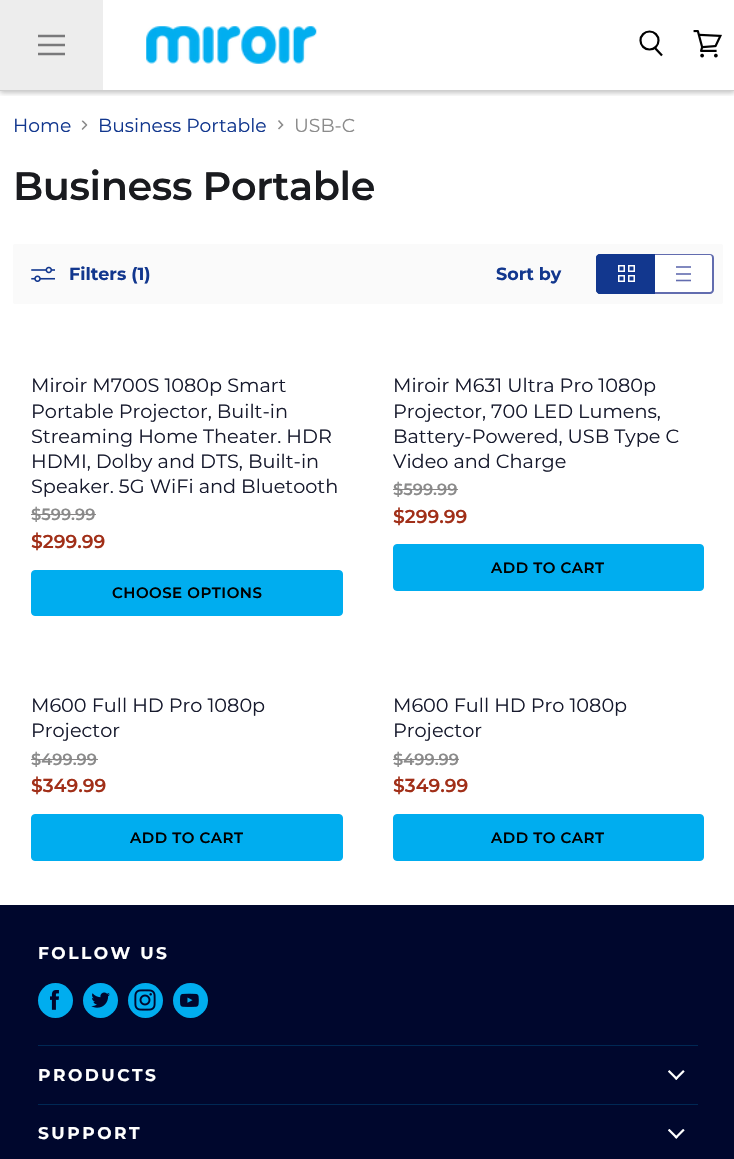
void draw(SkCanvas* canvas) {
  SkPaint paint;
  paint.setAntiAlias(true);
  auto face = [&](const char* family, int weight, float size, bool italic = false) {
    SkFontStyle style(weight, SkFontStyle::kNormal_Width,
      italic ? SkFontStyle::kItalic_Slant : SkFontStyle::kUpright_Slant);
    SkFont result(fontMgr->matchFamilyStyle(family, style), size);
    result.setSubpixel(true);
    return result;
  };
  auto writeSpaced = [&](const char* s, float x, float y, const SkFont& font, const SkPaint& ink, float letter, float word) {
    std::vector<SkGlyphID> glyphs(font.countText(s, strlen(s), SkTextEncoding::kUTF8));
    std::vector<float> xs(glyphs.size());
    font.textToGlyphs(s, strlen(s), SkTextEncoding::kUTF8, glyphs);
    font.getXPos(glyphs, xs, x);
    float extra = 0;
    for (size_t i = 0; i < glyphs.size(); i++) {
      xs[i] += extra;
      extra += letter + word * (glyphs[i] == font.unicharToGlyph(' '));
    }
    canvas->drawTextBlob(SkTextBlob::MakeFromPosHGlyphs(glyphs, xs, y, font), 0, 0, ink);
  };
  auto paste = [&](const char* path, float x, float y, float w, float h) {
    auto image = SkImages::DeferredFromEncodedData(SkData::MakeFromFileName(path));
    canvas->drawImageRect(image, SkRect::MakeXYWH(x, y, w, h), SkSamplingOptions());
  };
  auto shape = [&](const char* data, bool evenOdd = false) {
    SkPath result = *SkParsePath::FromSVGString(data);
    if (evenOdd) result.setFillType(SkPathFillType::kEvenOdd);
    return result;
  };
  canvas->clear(0xffffffff);
  canvas->save();
  canvas->clipRect(SkRect::MakeXYWH(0, 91, 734, 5));
  paint.setColor(0x40111111);
  paint.setMaskFilter(SkMaskFilter::MakeBlur(kNormal_SkBlurStyle, 2.5f));
  canvas->drawRect(SkRect::MakeXYWH(0, 1, 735, 92), paint);
  paint.setMaskFilter(nullptr);
  canvas->restore();
  paint.setColor(0xffcfcfcf);
  canvas->drawRect(SkRect::MakeXYWH(0, 90, 734, 1), paint);
  paint.setColor(0xffededed);
  canvas->drawRect(SkRect::MakeXYWH(0, 0, 103, 90), paint);
  canvas->save();
  canvas->clipRect(SkRect::MakeXYWH(38, 34, 27, 22));
  paint.setStroke(true);
  paint.setStrokeWidth(2.5f);
  paint.setStrokeCap(SkPaint::kSquare_Cap);
  paint.setStrokeJoin(SkPaint::kRound_Join);
  paint.setColor(0xff79797b);
  canvas->drawPath(shape("M64 36H39M64 45H39M64 54H39"), paint);
  canvas->restore();
  paste("img/1.png", 146, 26, 171, 38);
  paint.setStrokeWidth(2.2f);
  paint.setStrokeCap(SkPaint::kButt_Cap);
  paint.setStrokeJoin(SkPaint::kMiter_Join);
  paint.setColor(0xff000000);
  canvas->drawPath(shape("M662 55.5L654.5 47.5"), paint);
  canvas->drawCircle(649.5f, 40.5f, 9, paint);
  paste("img/2.png", 693, 30, 29, 28);
  canvas->save();
  canvas->clipPath(shape("M81.5 130.5V120.5H87.5V130.5Z"), true);
  paint.setStrokeWidth(1.6f);
  paint.setColor(0xff8b8b8b);
  canvas->drawPath(shape("M82 129.5L86.5 125L82 120.5"), paint);
  canvas->restore();
  canvas->drawPath(shape("M278.5 129L282.5 125L278.5 120.5"), paint);
  paint.setStroke(false);
  paint.setColor(0xfffafafa);
  canvas->drawRoundRect(SkRect::MakeXYWH(13, 244, 710, 60), 2, 2, paint);
  paste("img/3.png", 31, 266, 24, 16);
  paint.setColor(0xff12378e);
  canvas->drawPath(shape("M600 254H655V294H600C598 294 596 292 596 290V258C596 256 598 254 600 254Z"), paint);
  canvas->drawPath(shape("M600 254H655V294H600C598 294 596 292 596 290V258C596 255 598 254 600 254ZM600 255H655V292H600C599 292 598 291 598 290V258C598 256 599 255 600 255Z", true), paint);
  paste("img/4.png", 618, 265, 17, 17);
  paint.setColor(0xffffffff);
  canvas->drawPath(shape("M655 254H710C712 254 714 256 714 258V290C714 292 712 294 710 294H655Z"), paint);
  paint.setColor(0xff626caf);
  canvas->drawPath(shape("M655 254H710C712 254 714 255 714 258V290C714 292 712 294 710 294H655ZM655 255H710C711 255 712 256 712 258V290C712 291 711 292 710 292H655Z", true), paint);
  paint.setColor(0xff8189bf);
  canvas->drawRect(SkRect::MakeXYWH(676, 266, 15, 2), paint);
  canvas->drawRect(SkRect::MakeXYWH(676, 273, 15, 2), paint);
  paint.setStroke(true);
  paint.setStrokeJoin(SkPaint::kRound_Join);
  paint.setColor(0xff626caf);
  canvas->drawPath(shape("M676 280.5H691"), paint);
  paint.setStroke(false);
  paint.setColor(0xff00adef);
  canvas->drawRoundRect(SkRect::MakeXYWH(31.5f, 570.5f, 311, 45), 3.5f, 3.5f, paint);
  paint.setStroke(true);
  paint.setStrokeWidth(1);
  paint.setStrokeJoin(SkPaint::kMiter_Join);
  canvas->drawRoundRect(SkRect::MakeXYWH(31.5f, 570.5f, 311, 45), 3.5f, 3.5f, paint);
  paint.setStroke(false);
  canvas->drawRoundRect(SkRect::MakeXYWH(393.5f, 544.5f, 310, 46), 3.5f, 3.5f, paint);
  paint.setStroke(true);
  canvas->drawRoundRect(SkRect::MakeXYWH(393.5f, 544.5f, 310, 46), 3.5f, 3.5f, paint);
  paint.setStroke(false);
  canvas->drawRoundRect(SkRect::MakeXYWH(31.5f, 814.5f, 311, 46), 3.5f, 3.5f, paint);
  paint.setStroke(true);
  canvas->drawRoundRect(SkRect::MakeXYWH(31.5f, 814.5f, 311, 46), 3.5f, 3.5f, paint);
  paint.setStroke(false);
  canvas->drawRoundRect(SkRect::MakeXYWH(393.5f, 814.5f, 310, 46), 3.5f, 3.5f, paint);
  paint.setStroke(true);
  canvas->drawRoundRect(SkRect::MakeXYWH(393.5f, 814.5f, 310, 46), 3.5f, 3.5f, paint);
  paint.setStroke(false);
  paint.setColor(0xff00072d);
  canvas->drawRect(SkRect::MakeXYWH(0, 905, 734, 254), paint);
  paint.setColor(0xff002854);
  canvas->drawRect(SkRect::MakeXYWH(38, 1045, 660, 1), paint);
  paint.setColor(0xff00adef);
  canvas->drawCircle(55.5f, 1000.5f, 17.5f, paint);
  paste("img/5.png", 50, 990, 9, 20);
  canvas->drawCircle(100.5f, 1000.5f, 17.5f, paint);
  paste("img/6.png", 91, 992, 19, 16);
  canvas->drawCircle(145.5f, 1000.5f, 17.5f, paint);
  paste("img/7.png", 134, 989, 22, 22);
  canvas->drawCircle(190.5f, 1000.5f, 17.5f, paint);
  paste("img/8.png", 180, 993, 19, 14);
  paint.setColor(0xff002854);
  canvas->drawRect(SkRect::MakeXYWH(38, 1104, 660, 1), paint);
  paste("img/9.png", 668, 1070, 17, 10);
  paste("img/10.png", 668, 1129, 17, 10);
  auto f0 = face("Montserrat", 400, 18.75f);
  paint.setColor(0xff12378e);
  canvas->drawString("Home", 13, 132, f0, paint);
  canvas->drawString("Business Portable", 98, 132, f0, paint);
  paint.setColor(0xff8b8b8b);
  canvas->drawString("USB-C", 294, 132, f0, paint);
  auto f1 = face("Montserrat", 600, 39.75f);
  paint.setColor(0xff1a1b1f);
  writeSpaced("Business Portable", 13, 200, f1, paint, -0.4f, 0);
  auto f2 = face("Montserrat", 700, 17.5f);
  paint.setColor(0xff12378e);
  canvas->drawString("Filters (1)", 69, 280, f2, paint);
  canvas->drawString("Sort by", 496, 280, f2, paint);
  auto f3 = face("Montserrat", 400, 19.25f);
  paint.setColor(0xff171a2d);
  {
    const struct { const char* s; float x, y; } items[] = {
      {"Miroir M700S 1080p Smart", 31, 392},
      {"Portable Projector, Built-in", 31, 418},
      {"Streaming Home Theater. HDR", 31, 443},
      {"HDMI, Dolby and DTS, Built-in", 31, 468},
      {"Speaker. 5G WiFi and Bluetooth", 31, 493},
    };
    for (auto [s, x, y] : items) {
      canvas->drawString(s, x, y, f3, paint);
    }
  }
  auto f4 = face("Montserrat", 600, 16.25f);
  paint.setColor(0xff8b8b8b);
  canvas->drawString("$599.99", 31, 520, f4, paint);
  paint.setColor(0xff888686);
  canvas->drawRect(SkRect::MakeXYWH(31, 514, 65, 1), paint);
  auto f5 = face("Montserrat", 600, 18.75f);
  paint.setColor(0xffa12f18);
  canvas->drawString("$299.99", 31, 548, f5, paint);
  auto f6 = face("Montserrat", 600, 15);
  paint.setColor(0xff000000);
  writeSpaced("CHOOSE OPTIONS", 112, 598, f6, paint, 0.5f, 0);
  paint.setColor(0xff171a2d);
  {
    const struct { const char* s; float x, y; } items[] = {
      {"Miroir M631 Ultra Pro 1080p", 393, 392},
      {"Projector, 700 LED Lumens,", 393, 418},
      {"Battery-Powered, USB Type C", 393, 443},
      {"Video and Charge", 393, 468},
    };
    for (auto [s, x, y] : items) {
      canvas->drawString(s, x, y, f3, paint);
    }
  }
  paint.setColor(0xff8b8b8b);
  canvas->drawString("$599.99", 393, 495, f4, paint);
  paint.setColor(0xff888686);
  canvas->drawRect(SkRect::MakeXYWH(393, 489, 65, 1), paint);
  paint.setColor(0xffa12f18);
  canvas->drawString("$299.99", 393, 523, f5, paint);
  paint.setColor(0xff000000);
  writeSpaced("ADD TO CART", 491, 573, f6, paint, 0.5f, 0);
  paint.setColor(0xff171a2d);
  canvas->drawString("M600 Full HD Pro 1080p", 31, 712, f3, paint);
  canvas->drawString("Projector", 31, 737, f3, paint);
  paint.setColor(0xff8b8b8b);
  canvas->drawString("$499.99", 31, 765, f4, paint);
  paint.setColor(0xff888686);
  canvas->drawRect(SkRect::MakeXYWH(31, 759, 67, 1), paint);
  paint.setColor(0xffa12f18);
  canvas->drawString("$349.99", 31, 792, f5, paint);
  paint.setColor(0xff000000);
  writeSpaced("ADD TO CART", 130, 843, f6, paint, 0.5f, 0);
  paint.setColor(0xff171a2d);
  canvas->drawString("M600 Full HD Pro 1080p", 393, 712, f3, paint);
  canvas->drawString("Projector", 393, 737, f3, paint);
  paint.setColor(0xff8b8b8b);
  canvas->drawString("$499.99", 393, 765, f4, paint);
  paint.setColor(0xff888686);
  canvas->drawRect(SkRect::MakeXYWH(393, 759, 66, 1), paint);
  paint.setColor(0xffa12f18);
  canvas->drawString("$349.99", 393, 792, f5, paint);
  paint.setColor(0xff000000);
  writeSpaced("ADD TO CART", 491, 843, f6, paint, 0.5f, 0);
  auto f7 = face("Montserrat", 700, 17);
  paint.setColor(0xffffffff);
  {
    const struct { const char* s; float x, y; } items[] = {
      {"FOLLOW US", 38, 959},
      {"PRODUCTS", 38, 1081},
      {"SUPPORT", 38, 1139},
    };
    for (auto [s, x, y] : items) {
      writeSpaced(s, x, y, f7, paint, 2.5f, 0);
    }
  }
}
